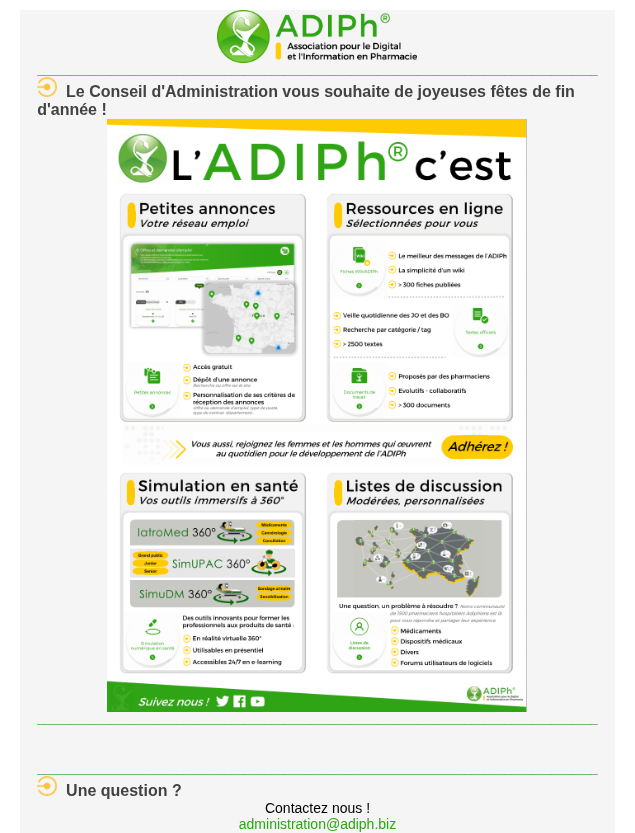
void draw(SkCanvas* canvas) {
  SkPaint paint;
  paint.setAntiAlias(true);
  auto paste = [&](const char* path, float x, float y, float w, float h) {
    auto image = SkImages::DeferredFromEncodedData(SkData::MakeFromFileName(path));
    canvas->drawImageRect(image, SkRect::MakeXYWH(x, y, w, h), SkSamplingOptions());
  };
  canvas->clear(0xffffffff);
  paste("img/1.png", 20, 10, 595, 823);
}
